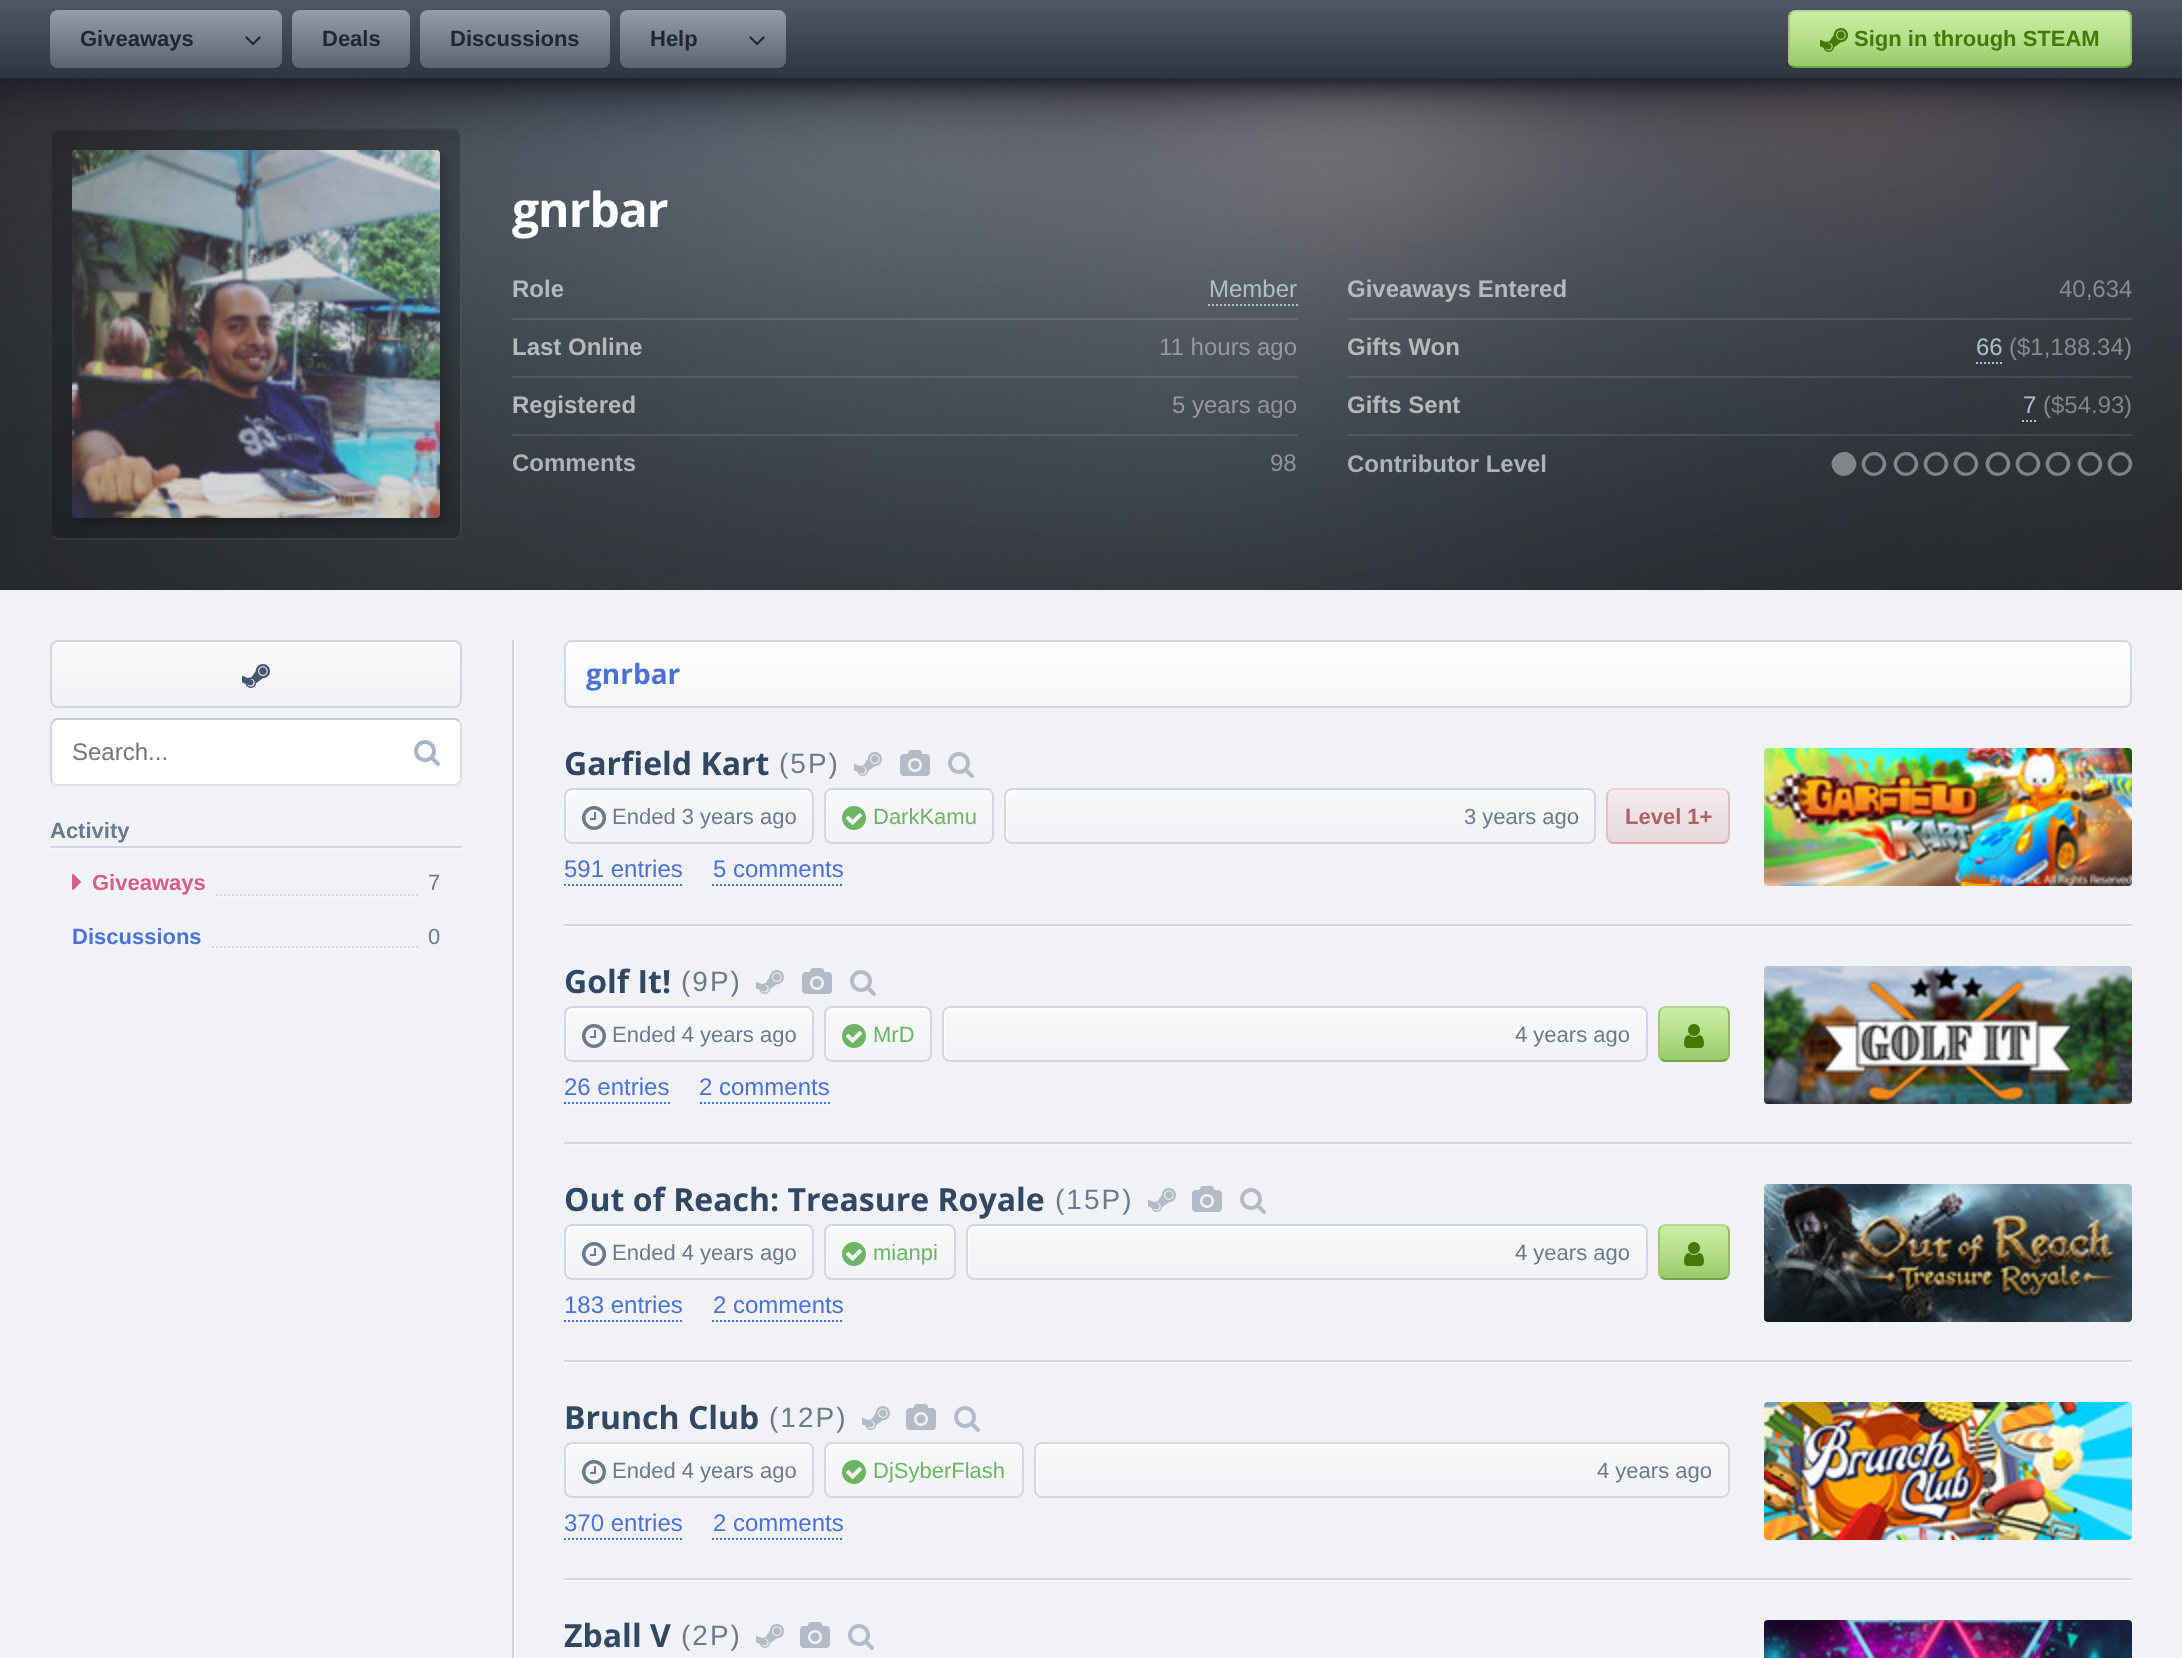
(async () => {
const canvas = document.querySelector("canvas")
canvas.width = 2182
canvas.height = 1658
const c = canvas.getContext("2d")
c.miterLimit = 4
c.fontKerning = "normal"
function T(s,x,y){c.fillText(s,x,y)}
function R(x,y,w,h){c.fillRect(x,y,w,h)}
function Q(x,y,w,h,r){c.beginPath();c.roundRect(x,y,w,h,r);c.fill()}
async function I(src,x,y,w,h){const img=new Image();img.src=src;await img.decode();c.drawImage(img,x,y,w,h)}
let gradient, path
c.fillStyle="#fff"
R(0,0,2182,1658)
gradient = c.createLinearGradient(1091,0,1091,78)
gradient.addColorStop(0,"#515763")
gradient.addColorStop(1,"#2f3540")
c.fillStyle = gradient
R(0,0,2182,78)
gradient = c.createLinearGradient(166,10,166,68)
gradient.addColorStop(0,"#959caa")
gradient.addColorStop(1,"#5d6373")
c.fillStyle = gradient
Q(50,10,232,58,8)
c.font="bold 22px Liberation Sans"
c.fillStyle="#21262f"
T("Giveaways",80,46)
await I("1.png",245,36,16,10)
gradient = c.createLinearGradient(351,10,351,68)
gradient.addColorStop(0,"#959caa")
gradient.addColorStop(1,"#5d6373")
c.fillStyle = gradient
Q(292,10,118,58,8)
c.fillStyle="#21262f"
T("Deals",322,46)
gradient = c.createLinearGradient(515,10,515,68)
gradient.addColorStop(0,"#959caa")
gradient.addColorStop(1,"#5d6373")
c.fillStyle = gradient
Q(420,10,190,58,8)
c.fillStyle="#21262f"
T("Discussions",450,46)
gradient = c.createLinearGradient(703,10,703,68)
gradient.addColorStop(0,"#959caa")
gradient.addColorStop(1,"#5d6373")
c.fillStyle = gradient
Q(620,10,166,58,8)
c.fillStyle="#21262f"
T("Help",650,46)
await I("1.png",749,36,16,10)
c.save()
c.beginPath()
c.roundRect(1788,10,344,58,8)
c.clip()
gradient = c.createLinearGradient(1960,12,1960,66)
gradient.addColorStop(0,"#caeea7")
gradient.addColorStop(.5,"#b4df8a")
gradient.addColorStop(1,"#9ac96a")
c.fillStyle = gradient
R(1788,12,344,54)
c.restore()
path = new Path2D("M1791 13c1.5-1.5 3-2 5-2h328c2 0 3.5 .5 5 2")
c.strokeStyle="#b9d393"
c.lineWidth=2
c.stroke(path)
path = new Path2D("M2129 13c1.5 1.5 2 3 2 5v42c0 2-.5 3.5-2 5")
c.strokeStyle="#96bc69"
c.stroke(path)
path = new Path2D("M2129 65c-1.5 1.5-3 2-5 2h-328c-2 0-3.5-.5-5-2")
c.strokeStyle="#73a442"
c.stroke(path)
path = new Path2D("M1791 65c-1.5-1.5-2-3-2-5v-42c0-2 .5-3.5 2-5")
c.strokeStyle="#a0c870"
c.stroke(path)
await I("2.png",1820,28,28,24)
c.fillStyle="#457807"
T("Sign in through STEAM",1854,46)
c.fillStyle="#4a5459"
R(0,87,2182,503)
await I("3.png",0,78,2182,512)
c.fillStyle="#00000033"
Q(50,128,412,412,8)
path = new Path2D("M459 131c1.5 1.5 2 3 2 5v396c0 2-.5 3.5-2 5c-1.5 1.5-3 2-5 2h-396c-2 0-3.5-.5-5-2")
c.strokeStyle="#ffffff1a"
c.stroke(path)
path = new Path2D("M53 537c-1.5-1.5-2-3-2-5v-396c0-2 .5-3.5 2-5c1.5-1.5 3-2 5-2h396c2 0 3.5 .5 5 2")
c.strokeStyle="#ffffff0d"
c.stroke(path)
c.filter="blur(4px)"
c.beginPath()
c.roundRect(78,156,368,368,4)
c.fill()
c.filter="none"
await I("4.png",72,150,368,368)
c.letterSpacing="-1px"
c.font="bold 48px Open Sans"
c.fillStyle="#fff"
T("gnrbar",512,227)
c.letterSpacing="0px"
c.font="bold 24px Liberation Sans"
c.fillStyle="#b5b9bc"
T("Role",512,297)
c.font="24px Liberation Sans"
c.fillStyle="#aac1cc"
T("Member",1209,297)
path = new Path2D("M1208 305h90")
c.strokeStyle="#aac1cc"
c.setLineDash([2,2])
c.stroke(path)
c.fillStyle="#ffffff1a"
R(512,318,786,2)
c.font="bold 24px Liberation Sans"
c.fillStyle="#b5b9bc"
T("Last Online",512,355)
c.font="24px Liberation Sans"
c.fillStyle="#96999d"
T("11 hours",1159,355)
T("ago",1257,355)
c.fillStyle="#ffffff1a"
R(512,376,786,2)
c.font="bold 24px Liberation Sans"
c.fillStyle="#b5b9bc"
T("Registered",512,413)
c.font="24px Liberation Sans"
c.fillStyle="#96999d"
T("5 years",1172,413)
c.fillStyle="#909498"
T("ago",1257,413)
c.fillStyle="#ffffff1a"
R(512,434,786,2)
c.font="bold 24px Liberation Sans"
c.fillStyle="#b0b2b4"
T("Comments",512,471)
c.font="24px Liberation Sans"
c.fillStyle="#909498"
T("98",1270,471)
c.font="bold 24px Liberation Sans"
c.fillStyle="#b5b9bc"
T("Giveaways Entered",1347,297)
c.font="24px Liberation Sans"
c.fillStyle="#888b8f"
T("40,634",2059,297)
c.fillStyle="#ffffff1a"
R(1348,318,784,2)
c.font="bold 24px Liberation Sans"
c.fillStyle="#b5b9bc"
T("Gifts Won",1347,355)
c.font="24px Liberation Sans"
c.fillStyle="#aac1cc"
T("66",1976,355)
path = new Path2D("M1976 363h26")
c.stroke(path)
c.fillStyle="#888b8f"
T("(",2009,355)
T("$1,188.34",2017,355)
T(")",2124,355)
c.fillStyle="#ffffff1a"
R(1348,376,784,2)
c.font="bold 24px Liberation Sans"
c.fillStyle="#b5b9bc"
T("Gifts Sent",1347,413)
c.font="24px Liberation Sans"
c.fillStyle="#aac1cc"
T("7",2023,413)
path = new Path2D("M2022 421h2m2 0h2m2 0h2m2 0h2")
c.setLineDash([])
c.stroke(path)
c.fillStyle="#888b8f"
T("(",2043,413)
c.fillStyle="#838689"
T("$54.93",2051,413)
T(")",2124,413)
c.fillStyle="#ffffff1a"
R(1348,434,784,2)
c.font="bold 24px Liberation Sans"
c.fillStyle="#b0b2b4"
T("Contributor Level",1347,472)
c.fillStyle="#ffffff66"
path = new Path2D("M1854.5 458c8 13.5-13 25.5-21 12c-8-13.5 13-25.5 21-12zm24-1.5c-10-5.5-18.5 9-9 15c10 5.5 18.5-9 9-15zm6 1.5c8 13.5-13 25.5-21 12c-8-13.5 13-25.5 21-12z")
c.fill(path)
path = new Path2D("M1910.5 456.5c-10-5.5-18.5 9-9 15c10 5.5 18.5-9 9-15zm6 1.5c8 13.5-13 25.5-21 12c-8-13.5 13-25.5 21-12zm24-1.5c-10-5.5-18.5 9-9 15c10 5.5 18.5-9 9-15zm6 1.5c8 13.5-13 25.5-21 12c-8-13.5 13-25.5 21-12z")
c.fill(path)
path = new Path2D("M1970.5 456.5c-10-5.5-18.5 9-9 15c10 5.5 18.5-9 9-15zm6 1.5c8 13.5-13 25.5-21 12c-8-13.5 13-25.5 21-12z")
c.fill(path)
c.fillStyle="#828487"
path = new Path2D("M2002.5 456.5c-10-5.5-18.5 9-9 15c10 5.5 18.5-9 9-15zm6 1.5c8 13.5-13 25.5-21 12c-8-13.5 13-25.5 21-12z")
c.fill(path)
c.fillStyle="#ffffff66"
path = new Path2D("M2032.5 456.5c-10-5.5-18.5 9-9 15c10 5.5 18.5-9 9-15zm6 1.5c8 13.5-13 25.5-21 12c-8-13.5 13-25.5 21-12zm24-1.5c-10-5.5-18.5 9-9 15c10 5.5 18.5-9 9-15zm6 1.5c8 13.5-13 25.5-21 12c-8-13.5 13-25.5 21-12z")
c.fill(path)
path = new Path2D("M2094.5 456.5c-10-5.5-18.5 9-9 15c10 5.5 18.5-9 9-15zm6 1.5c8 13.5-13 25.5-21 12c-8-13.5 13-25.5 21-12zm24-1.5c-10-5.5-18.5 9-9 15c10 5.5 18.5-9 9-15zm6 1.5c8 13.5-13 25.5-21 12c-8-13.5 13-25.5 21-12z")
c.fill(path)
c.fillStyle="#f0f2f5"
R(0,590,2182,1068)
c.save()
c.beginPath()
c.roundRect(50,640,412,68,8)
c.clip()
gradient = c.createLinearGradient(256,642,256,706)
gradient.addColorStop(0,"#f8f9fa")
gradient.addColorStop(1,"#f1f3f6")
c.fillStyle = gradient
R(50,642,412,64)
c.restore()
c.beginPath()
c.roundRect(51,641,410,66,7)
c.strokeStyle="#d2d6e0"
c.stroke()
await I("5.png",242,664,28,24)
c.fillStyle="#fff"
Q(50,718,412,68,8)
path = new Path2D("M53 721c1.5-1.5 3-2 5-2h396c2 0 3.5 .5 5 2")
c.strokeStyle="#c5cad7"
c.stroke(path)
path = new Path2D("M459 721c1.5 1.5 2 3 2 5v52c0 2-.5 3.5-2 5c-1.5 1.5-3 2-5 2h-396c-2 0-3.5-.5-5-2")
c.strokeStyle="#dee0e8"
c.stroke(path)
path = new Path2D("M53 783c-1.5-1.5-2-3-2-5v-52c0-2 .5-3.5 2-5")
c.strokeStyle="#d2d4e0"
c.stroke(path)
c.font="24px Liberation Sans"
c.fillStyle="#757575"
T("Search...",72,760)
await I("6.png",414,740,26,26)
c.fillStyle="#f5f6f8"
R(50,848,412,2)
c.fillStyle="#d2d6e0"
R(50,846,412,2)
c.font="bold 22px Liberation Sans"
c.fillStyle="#6b7a8c"
T("Activity",50,838)
await I("7.png",72,874,9,16)
c.fillStyle="#da5d88"
T("Giveaways",92,890)
c.font="22px Liberation Sans"
c.fillStyle="#6b7a8c"
T("7",428,890)
c.fillStyle="#f5f6f8"
R(216,896,202,2)
path = new Path2D("M216 895h202")
c.strokeStyle="#d2d6e0"
c.setLineDash([2,2])
c.stroke(path)
c.font="bold 22px Liberation Sans"
c.fillStyle="#4b72d4"
T("Discussions",72,944)
c.font="22px Liberation Sans"
c.fillStyle="#6b7a8c"
T("0",428,944)
c.fillStyle="#f5f6f8"
R(212,948,206,2)
path = new Path2D("M212 947h206")
c.stroke(path)
R(514,640,2,1018)
c.fillStyle="#d2d6e0"
R(512,640,2,1018)
c.save()
c.beginPath()
c.roundRect(564,640,1568,68,8)
c.clip()
gradient = c.createLinearGradient(1348,642,1348,706)
gradient.addColorStop(0,"#fff")
gradient.addColorStop(1,"#f6f7f9")
c.fillStyle = gradient
R(564,642,1568,64)
c.restore()
c.beginPath()
c.roundRect(565,641,1566,66,7)
c.setLineDash([])
c.stroke()
c.font="bold 28px Open Sans"
c.fillStyle="#4b72d4"
T("gnrbar",586,684)
c.fillStyle="#f5f6f8"
R(564,926,1568,2)
c.fillStyle="#d2d6e0"
R(564,924,1568,2)
c.font="bold 32px Open Sans"
c.fillStyle="#324862"
T("Garfield Kart",564,775)
c.letterSpacing="2px"
c.font="28px Liberation Sans"
c.fillStyle="#6b7a8c"
T("(5P)",779,773)
await I("8.png",854,752,28,24)
await I("9.png",900,750,30,26)
await I("10.png",948,752,26,26)
c.save()
c.beginPath()
c.roundRect(564,788,250,56,8)
c.clip()
gradient = c.createLinearGradient(689,790,689,842)
gradient.addColorStop(0,"#f9fafb")
gradient.addColorStop(.23,"#f5f7f9")
gradient.addColorStop(1,"#f2f3f6")
c.fillStyle = gradient
R(564,790,250,52)
c.restore()
c.fillStyle="#ffffff99"
path = new Path2D("M574 792h234c1 0 2 0 3 1c-1-2-3-3-5-3h-234c-3 0-6 3-6 6v40c0 2 1 4 3 5c-1-1-1-2-1-3v-40c0-3 3-6 6-6z")
c.fill(path)
c.beginPath()
c.roundRect(565,789,248,54,7)
c.stroke()
await I("11.png",582,806,24,24)
c.letterSpacing="0px"
c.font="22px Liberation Sans"
c.fillStyle="#6b7a8c"
T("Ended 3 years ago",612,824)
c.save()
c.beginPath()
c.roundRect(824,788,170,56,8)
c.clip()
gradient = c.createLinearGradient(909,790,909,842)
gradient.addColorStop(0,"#f9fafb")
gradient.addColorStop(.23,"#f5f7f9")
gradient.addColorStop(1,"#f2f3f6")
c.fillStyle = gradient
R(824,790,170,52)
c.restore()
c.fillStyle="#ffffff99"
path = new Path2D("M834 792h154c1 0 2 0 3 1c-1-2-3-3-5-3h-154c-3 0-6 3-6 6v40c0 2 1 4 3 5c-1-1-1-2-1-3v-40c0-3 3-6 6-6z")
c.fill(path)
c.beginPath()
c.roundRect(825,789,168,54,7)
c.stroke()
await I("12.png",842,806,24,24)
c.fillStyle="#6db563"
T("DarkKamu",873,824)
c.save()
c.beginPath()
c.roundRect(1004,788,592,56,8)
c.clip()
gradient = c.createLinearGradient(1300,790,1300,842)
gradient.addColorStop(0,"#f9fafb")
gradient.addColorStop(.23,"#f5f7f9")
gradient.addColorStop(1,"#f2f3f6")
c.fillStyle = gradient
R(1004,790,592,52)
c.restore()
c.fillStyle="#ffffff99"
path = new Path2D("M1014 792h576l3 1c-1-2-3-3-5-3h-576c-3 0-6 3-6 6v40c0 2 1 4 3 5c-1-1-1-2-1-3v-40c0-3 3-6 6-6z")
c.fill(path)
c.beginPath()
c.roundRect(1005,789,590,54,7)
c.stroke()
c.fillStyle="#6b7a8c"
T("3 years ago",1464,824)
c.save()
c.beginPath()
c.roundRect(1606,788,124,56,8)
c.clip()
gradient = c.createLinearGradient(1668,790,1668,842)
gradient.addColorStop(0,"#f5eaec")
gradient.addColorStop(1,"#e6d9de")
c.fillStyle = gradient
R(1606,790,124,52)
c.restore()
path = new Path2D("M1609 791c1.5-1.5 3-2 5-2h108c2 0 3.5 .5 5 2")
c.strokeStyle="#f0d0d3"
c.stroke(path)
path = new Path2D("M1727 791c1.5 1.5 2 3 2 5v40c0 2-.5 3.5-2 5")
c.strokeStyle="#e5bbbc"
c.stroke(path)
path = new Path2D("M1727 841c-1.5 1.5-3 2-5 2h-108c-2 0-3.5-.5-5-2")
c.strokeStyle="#daa9a8"
c.stroke(path)
path = new Path2D("M1609 841c-1.5-1.5-2-3-2-5v-40c0-2 .5-3.5 2-5")
c.strokeStyle="#ebbfc0"
c.stroke(path)
c.font="bold 22px Liberation Sans"
c.fillStyle="#aa6463"
T("Level 1+",1625,824)
c.font="24px Liberation Sans"
c.fillStyle="#4b72d4"
T("591 entries",564,877)
c.fillStyle="#f5f6f8"
R(564,886,118,2)
path = new Path2D("M564 885h118")
c.strokeStyle="#4b72d4"
c.setLineDash([2,2])
c.stroke(path)
c.fillStyle="#4b72d4"
T("5 comments",713,877)
c.fillStyle="#f5f6f8"
R(712,886,132,2)
path = new Path2D("M712 885h132")
c.stroke(path)
await I("13.png",1764,748,368,138)
R(564,1144,1568,2)
c.fillStyle="#d2d6e0"
R(564,1142,1568,2)
c.font="bold 32px Open Sans"
c.fillStyle="#324862"
T("Golf It!",564,993)
c.letterSpacing="2px"
c.font="28px Liberation Sans"
c.fillStyle="#6b7a8c"
T("(9P)",681,991)
await I("8.png",756,970,28,24)
await I("9.png",802,968,30,26)
await I("10.png",850,970,26,26)
c.save()
c.beginPath()
c.roundRect(564,1006,250,56,8)
c.clip()
gradient = c.createLinearGradient(689,1008,689,1060)
gradient.addColorStop(0,"#f9fafb")
gradient.addColorStop(.23,"#f5f7f9")
gradient.addColorStop(1,"#f2f3f6")
c.fillStyle = gradient
R(564,1008,250,52)
c.restore()
c.fillStyle="#ffffff99"
path = new Path2D("M574 1010h234c1 0 2 0 3 1c-1-2-3-3-5-3h-234c-3 0-6 3-6 6v40c0 2 1 4 3 5c-1-1-1-2-1-3v-40c0-3 3-6 6-6z")
c.fill(path)
c.beginPath()
c.roundRect(565,1007,248,54,7)
c.strokeStyle="#d2d6e0"
c.setLineDash([])
c.stroke()
await I("11.png",582,1024,24,24)
c.letterSpacing="0px"
c.font="22px Liberation Sans"
c.fillStyle="#6b7a8c"
T("Ended 4 years ago",612,1042)
c.save()
c.beginPath()
c.roundRect(824,1006,108,56,8)
c.clip()
gradient = c.createLinearGradient(878,1008,878,1060)
gradient.addColorStop(0,"#f9fafb")
gradient.addColorStop(.23,"#f5f7f9")
gradient.addColorStop(1,"#f2f3f6")
c.fillStyle = gradient
R(824,1008,108,52)
c.restore()
c.fillStyle="#ffffff99"
path = new Path2D("M834 1010h92c1 0 2 0 3 1c-1-2-3-3-5-3h-92c-3 0-6 3-6 6v40c0 2 1 4 3 5c-1-1-1-2-1-3v-40c0-3 3-6 6-6z")
c.fill(path)
c.beginPath()
c.roundRect(825,1007,106,54,7)
c.stroke()
await I("12.png",842,1024,24,24)
c.fillStyle="#6db563"
T("MrD",873,1042)
c.save()
c.beginPath()
c.roundRect(942,1006,706,56,8)
c.clip()
gradient = c.createLinearGradient(1295,1008,1295,1060)
gradient.addColorStop(0,"#f9fafb")
gradient.addColorStop(.23,"#f5f7f9")
gradient.addColorStop(1,"#f2f3f6")
c.fillStyle = gradient
R(942,1008,706,52)
c.restore()
c.fillStyle="#ffffff99"
path = new Path2D("M952 1010h690l3 1c-1-2-3-3-5-3h-690c-3 0-6 3-6 6v40c0 2 1 4 3 5c-1-1-1-2-1-3v-40c0-3 3-6 6-6z")
c.fill(path)
c.beginPath()
c.roundRect(943,1007,704,54,7)
c.stroke()
c.fillStyle="#6b7a8c"
T("4 years ago",1515,1042)
c.save()
c.beginPath()
c.roundRect(1658,1006,72,56,8)
c.clip()
gradient = c.createLinearGradient(1694,1008,1694,1060)
gradient.addColorStop(0,"#caeea7")
gradient.addColorStop(.5,"#b4df8a")
gradient.addColorStop(1,"#9ac96a")
c.fillStyle = gradient
R(1658,1008,72,52)
c.restore()
path = new Path2D("M1661 1009c1.5-1.5 3-2 5-2h56c2 0 3.5 .5 5 2")
c.strokeStyle="#b9d393"
c.stroke(path)
path = new Path2D("M1727 1009c1.5 1.5 2 3 2 5v40c0 2-.5 3.5-2 5")
c.strokeStyle="#96bc69"
c.stroke(path)
path = new Path2D("M1727 1059c-1.5 1.5-3 2-5 2h-56c-2 0-3.5-.5-5-2")
c.strokeStyle="#73a442"
c.stroke(path)
path = new Path2D("M1661 1059c-1.5-1.5-2-3-2-5v-40c0-2 .5-3.5 2-5")
c.strokeStyle="#a0c870"
c.stroke(path)
await I("14.png",1684,1024,20,24)
c.font="24px Liberation Sans"
c.fillStyle="#4b72d4"
T("26 entries",564,1095)
c.fillStyle="#f5f6f8"
R(564,1104,106,2)
path = new Path2D("M564 1103h106")
c.strokeStyle="#4b72d4"
c.setLineDash([2,2])
c.stroke(path)
c.fillStyle="#4b72d4"
T("2 comments",699,1095)
c.fillStyle="#f5f6f8"
R(700,1104,130,2)
path = new Path2D("M700 1103h130")
c.stroke(path)
await I("15.png",1764,966,368,138)
R(564,1362,1568,2)
c.fillStyle="#d2d6e0"
R(564,1360,1568,2)
c.font="bold 32px Open Sans"
c.fillStyle="#324862"
T("Out of Reach: Treasure Royale",564,1211)
c.letterSpacing="2px"
c.font="28px Liberation Sans"
c.fillStyle="#6b7a8c"
T("(15P)",1055,1209)
await I("8.png",1148,1188,28,24)
await I("9.png",1192,1186,30,26)
await I("10.png",1240,1188,26,26)
c.save()
c.beginPath()
c.roundRect(564,1224,250,56,8)
c.clip()
gradient = c.createLinearGradient(689,1226,689,1278)
gradient.addColorStop(0,"#f9fafb")
gradient.addColorStop(.23,"#f5f7f9")
gradient.addColorStop(1,"#f2f3f6")
c.fillStyle = gradient
R(564,1226,250,52)
c.restore()
c.fillStyle="#ffffff99"
path = new Path2D("M574 1228h234c1 0 2 0 3 1c-1-2-3-3-5-3h-234c-3 0-6 3-6 6v40c0 2 1 4 3 5c-1-1-1-2-1-3v-40c0-3 3-6 6-6z")
c.fill(path)
c.beginPath()
c.roundRect(565,1225,248,54,7)
c.strokeStyle="#d2d6e0"
c.setLineDash([])
c.stroke()
await I("11.png",582,1242,24,24)
c.letterSpacing="0px"
c.font="22px Liberation Sans"
c.fillStyle="#6b7a8c"
T("Ended 4 years ago",612,1260)
c.save()
c.beginPath()
c.roundRect(824,1224,132,56,8)
c.clip()
gradient = c.createLinearGradient(890,1226,890,1278)
gradient.addColorStop(0,"#f9fafb")
gradient.addColorStop(.23,"#f5f7f9")
gradient.addColorStop(1,"#f2f3f6")
c.fillStyle = gradient
R(824,1226,132,52)
c.restore()
c.fillStyle="#ffffff99"
path = new Path2D("M834 1228h116c1 0 2 0 3 1c-1-2-3-3-5-3h-116c-3 0-6 3-6 6v40c0 2 1 4 3 5c-1-1-1-2-1-3v-40c0-3 3-6 6-6z")
c.fill(path)
c.beginPath()
c.roundRect(825,1225,130,54,7)
c.stroke()
await I("12.png",842,1242,24,24)
c.fillStyle="#6db563"
T("mianpi",873,1260)
c.save()
c.beginPath()
c.roundRect(966,1224,682,56,8)
c.clip()
gradient = c.createLinearGradient(1307,1226,1307,1278)
gradient.addColorStop(0,"#f9fafb")
gradient.addColorStop(.23,"#f5f7f9")
gradient.addColorStop(1,"#f2f3f6")
c.fillStyle = gradient
R(966,1226,682,52)
c.restore()
c.fillStyle="#ffffff99"
path = new Path2D("M976 1228h666l3 1c-1-2-3-3-5-3h-666c-3 0-6 3-6 6v40c0 2 1 4 3 5c-1-1-1-2-1-3v-40c0-3 3-6 6-6z")
c.fill(path)
c.beginPath()
c.roundRect(967,1225,680,54,7)
c.stroke()
c.fillStyle="#6b7a8c"
T("4 years ago",1515,1260)
c.save()
c.beginPath()
c.roundRect(1658,1224,72,56,8)
c.clip()
gradient = c.createLinearGradient(1694,1226,1694,1278)
gradient.addColorStop(0,"#caeea7")
gradient.addColorStop(.5,"#b4df8a")
gradient.addColorStop(1,"#9ac96a")
c.fillStyle = gradient
R(1658,1226,72,52)
c.restore()
path = new Path2D("M1661 1227c1.5-1.5 3-2 5-2h56c2 0 3.5 .5 5 2")
c.strokeStyle="#b9d393"
c.stroke(path)
path = new Path2D("M1727 1227c1.5 1.5 2 3 2 5v40c0 2-.5 3.5-2 5")
c.strokeStyle="#96bc69"
c.stroke(path)
path = new Path2D("M1727 1277c-1.5 1.5-3 2-5 2h-56c-2 0-3.5-.5-5-2")
c.strokeStyle="#73a442"
c.stroke(path)
path = new Path2D("M1661 1277c-1.5-1.5-2-3-2-5v-40c0-2 .5-3.5 2-5")
c.strokeStyle="#a0c870"
c.stroke(path)
await I("14.png",1684,1242,20,24)
c.font="24px Liberation Sans"
c.fillStyle="#4b72d4"
T("183 entries",564,1313)
c.fillStyle="#f5f6f8"
R(564,1322,118,2)
path = new Path2D("M564 1321h118")
c.strokeStyle="#4b72d4"
c.setLineDash([2,2])
c.stroke(path)
c.fillStyle="#4b72d4"
T("2 comments",713,1313)
c.fillStyle="#f5f6f8"
R(712,1322,132,2)
path = new Path2D("M712 1321h132")
c.stroke(path)
await I("16.png",1764,1184,368,138)
R(564,1580,1568,2)
c.fillStyle="#d2d6e0"
R(564,1578,1568,2)
c.font="bold 32px Open Sans"
c.fillStyle="#324862"
T("Brunch Club",564,1429)
c.letterSpacing="2px"
c.font="28px Liberation Sans"
c.fillStyle="#6b7a8c"
T("(12P)",769,1427)
await I("8.png",862,1406,28,24)
await I("9.png",906,1404,30,26)
await I("10.png",954,1406,26,26)
c.save()
c.beginPath()
c.roundRect(564,1442,250,56,8)
c.clip()
gradient = c.createLinearGradient(689,1444,689,1496)
gradient.addColorStop(0,"#f9fafb")
gradient.addColorStop(.23,"#f5f7f9")
gradient.addColorStop(1,"#f2f3f6")
c.fillStyle = gradient
R(564,1444,250,52)
c.restore()
c.fillStyle="#ffffff99"
path = new Path2D("M574 1446h234c1 0 2 0 3 1c-1-2-3-3-5-3h-234c-3 0-6 3-6 6v40c0 2 1 4 3 5c-1-1-1-2-1-3v-40c0-3 3-6 6-6z")
c.fill(path)
c.beginPath()
c.roundRect(565,1443,248,54,7)
c.strokeStyle="#d2d6e0"
c.setLineDash([])
c.stroke()
await I("11.png",582,1460,24,24)
c.letterSpacing="0px"
c.font="22px Liberation Sans"
c.fillStyle="#6b7a8c"
T("Ended 4 years ago",612,1478)
c.save()
c.beginPath()
c.roundRect(824,1442,200,56,8)
c.clip()
gradient = c.createLinearGradient(924,1444,924,1496)
gradient.addColorStop(0,"#f9fafb")
gradient.addColorStop(.23,"#f5f7f9")
gradient.addColorStop(1,"#f2f3f6")
c.fillStyle = gradient
R(824,1444,200,52)
c.restore()
c.fillStyle="#ffffff99"
path = new Path2D("M834 1446h184c1 0 2 0 3 1c-1-2-3-3-5-3h-184c-3 0-6 3-6 6v40c0 2 1 4 3 5c-1-1-1-2-1-3v-40c0-3 3-6 6-6z")
c.fill(path)
c.beginPath()
c.roundRect(825,1443,198,54,7)
c.stroke()
await I("12.png",842,1460,24,24)
c.fillStyle="#6db563"
T("DjSyberFlash",873,1478)
c.save()
c.beginPath()
c.roundRect(1034,1442,696,56,8)
c.clip()
gradient = c.createLinearGradient(1382,1444,1382,1496)
gradient.addColorStop(0,"#f9fafb")
gradient.addColorStop(.23,"#f5f7f9")
gradient.addColorStop(1,"#f2f3f6")
c.fillStyle = gradient
R(1034,1444,696,52)
c.restore()
c.fillStyle="#ffffff99"
path = new Path2D("M1044 1446h680l3 1c-1-2-3-3-5-3h-680c-3 0-6 3-6 6v40c0 2 1 4 3 5c-1-1-1-2-1-3v-40c0-3 3-6 6-6z")
c.fill(path)
c.beginPath()
c.roundRect(1035,1443,694,54,7)
c.stroke()
c.fillStyle="#6b7a8c"
T("4 years ago",1597,1478)
c.font="24px Liberation Sans"
c.fillStyle="#4b72d4"
T("370 entries",564,1531)
c.fillStyle="#f5f6f8"
R(564,1540,118,2)
path = new Path2D("M564 1539h118")
c.strokeStyle="#4b72d4"
c.setLineDash([2,2])
c.stroke(path)
c.fillStyle="#4b72d4"
T("2 comments",713,1531)
c.fillStyle="#f5f6f8"
R(712,1540,132,2)
path = new Path2D("M712 1539h132")
c.stroke(path)
await I("17.png",1764,1402,368,138)
c.font="bold 32px Open Sans"
c.fillStyle="#324862"
T("Zball V",564,1647)
c.letterSpacing="2px"
c.font="28px Liberation Sans"
c.fillStyle="#6b7a8c"
T("(2P)",681,1645)
await I("8.png",756,1624,28,24)
await I("9.png",800,1622,30,26)
await I("10.png",848,1624,26,26)
await I("18.png",1764,1620,368,38)
})()
